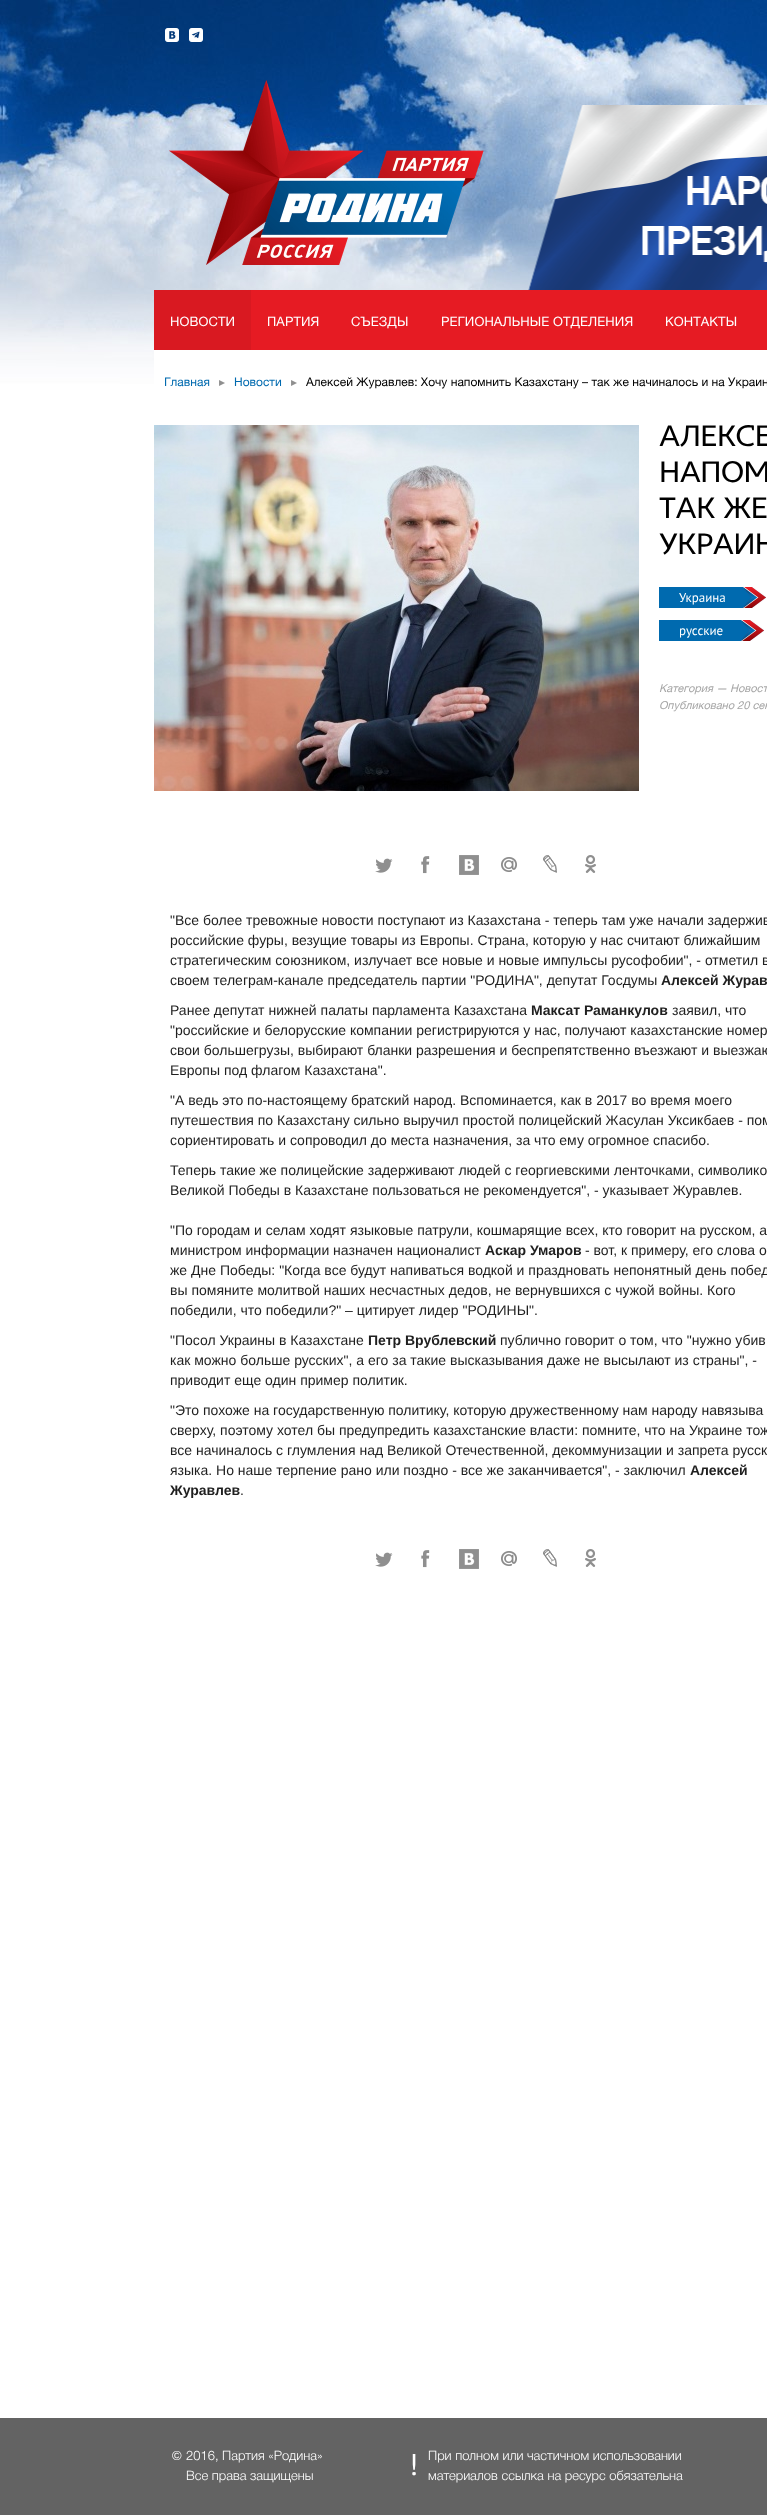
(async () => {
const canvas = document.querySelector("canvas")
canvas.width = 767
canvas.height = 2515
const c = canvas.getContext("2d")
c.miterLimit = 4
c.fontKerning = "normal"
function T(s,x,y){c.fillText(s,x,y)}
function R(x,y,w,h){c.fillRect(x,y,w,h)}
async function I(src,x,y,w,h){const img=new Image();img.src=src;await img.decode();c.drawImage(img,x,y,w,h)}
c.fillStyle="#fff"
R(0,0,767,2515)
await I("1.png",0,0,767,384)
await I("2.png",165,28,14,14)
await I("3.png",189,28,14,14)
await I("4.png",169,80,315,185)
await I("5.png",528,105,239,185)
c.fillStyle="#e61b23"
R(251,290,516,60)
c.fillStyle="#d91921"
R(154,290,97,60)
c.letterSpacing="0.1px"
c.font="13px Helvetica Neue"
c.fillStyle="#fff"
T("НОВОСТИ",170,326)
T("ПАРТИЯ",267,326)
T("СЪЕЗДЫ",351,326)
T("РЕГИОНАЛЬНЫЕ ОТДЕЛЕНИЯ",441,326)
T("КОНТАКТЫ",665,326)
R(154,350,613,34)
c.letterSpacing="0px"
c.font="12px Helvetica Neue"
c.fillStyle="#006aaf"
T("Главная",164,386)
c.font="12px DejaVu Sans"
c.fillStyle="#8f8f8f"
T("▸",219,386)
c.font="12px Helvetica Neue"
c.fillStyle="#006aaf"
T("Новости",234,386)
c.font="12px DejaVu Sans"
c.fillStyle="#8f8f8f"
T("▸",291,386)
c.font="12px Helvetica Neue"
c.fillStyle="#000"
T("Алексей Журавлев: Хочу напомнить Казахстану – так же начиналось и на Украин",306,386)
await I("6.png",154,425,485,366)
c.letterSpacing="-0.5px"
c.font="30px 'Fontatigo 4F'"
T("АЛЕКСЕ",659,446)
T("НАПОМ",659,482)
T("ТАК ЖЕ",659,518)
T("УКРАИН",659,554)
c.fillStyle="#006aaf"
R(659,587,93,21)
c.letterSpacing="0px"
c.font="13px PT Sans"
c.fillStyle="#fff"
T("Украина",679,602)
await I("7.png",743,587,23,21)
c.fillStyle="#006aaf"
R(659,620,91,21)
c.fillStyle="#fff"
T("русские",679,635)
await I("7.png",741,620,23,21)
c.font="italic 11px Helvetica Neue"
c.fillStyle="#a6a6a6"
T("Категория — Новост",659,692)
T("Опубликовано 20 сен",659,709)
await I("8.png",375,858,18,15)
await I("9.png",421,856,9,18)
await I("10.png",459,855,20,20)
await I("11.png",501,857,16,15)
await I("12.png",543,855,14,18)
await I("13.png",585,855,11,18)
c.font="14px Liberation Sans"
c.fillStyle="#1f1f1f"
T("\"Все более тревожные новости поступают из Казахстана - теперь там уже начали задержив",170,925)
T("российские фуры, везущие товары из Европы. Страна, которую у нас считают ближайшим",170,945)
T("стратегическим союзником, излучает все новые и новые импульсы русофобии\", - отметил в",170,965)
T("своем телеграм-канале председатель партии \"РОДИНА\", депутат Госдумы",170,985)
c.font="bold 14px Liberation Sans"
T("Алексей Журав",661,985)
c.font="14px Liberation Sans"
T("Ранее депутат нижней палаты парламента Казахстана",170,1015)
c.font="bold 14px Liberation Sans"
T("Максат Раманкулов",531,1015)
c.font="14px Liberation Sans"
T("заявил, что",672,1015)
T("\"российские и белорусские компании регистрируются у нас, получают казахстанские номер",170,1035)
T("свои большегрузы, выбирают бланки разрешения и беспрепятственно въезжают и выезжаю",170,1055)
T("Европы под флагом Казахстана\".",170,1075)
T("\"А ведь это по-настоящему братский народ. Вспоминается, как в 2017 во время моего",170,1105)
T("путешествия по Казахстану сильно выручил простой полицейский Жасулан Уксикбаев - пом",170,1125)
T("сориентировать и сопроводил до места назначения, за что ему огромное спасибо.",170,1145)
T("Теперь такие же полицейские задерживают людей с георгиевскими ленточками, символико",170,1175)
T("Великой Победы в Казахстане пользоваться не рекомендуется\", - указывает Журавлев.",170,1195)
T("\"По городам и селам ходят языковые патрули, кошмарящие всех, кто говорит на русском, а",170,1235)
T("министром информации назначен националист",170,1255)
c.font="bold 14px Liberation Sans"
T("Аскар Умаров",485,1255)
c.font="14px Liberation Sans"
T("- вот, к примеру, его слова о",585,1255)
T("же Дне Победы: \"Когда все будут напиваться водкой и праздновать непонятный день побед",170,1275)
T("вы помяните молитвой наших несчастных дедов, не вернувшихся с чужой войны. Кого",170,1295)
T("победили, что победили?\" – цитирует лидер \"РОДИНЫ\".",170,1315)
T("\"Посол Украины в Казахстане",170,1345)
c.font="bold 14px Liberation Sans"
T("Петр Врублевский",368,1345)
c.font="14px Liberation Sans"
T("публично говорит о том, что \"нужно убив",500,1345)
T("как можно больше русских\", а его за такие высказывания даже не высылают из страны\", -",170,1365)
T("приводит еще один пример политик.",170,1385)
T("\"Это похоже на государственную политику, которую дружественному нам народу навязыва",170,1415)
T("сверху, поэтому хотел бы предупредить казахстанские власти: помните, что на Украине тож",170,1435)
T("все начиналось с глумления над Великой Отечественной, декоммунизации и запрета русск",170,1455)
T("языка. Но наше терпение рано или поздно - все же заканчивается\", - заключил",170,1475)
c.font="bold 14px Liberation Sans"
T("Алексей",690,1475)
T("Журавлев",170,1495)
c.font="14px Liberation Sans"
T(".",240,1495)
await I("8.png",375,1552,18,15)
await I("9.png",421,1550,9,18)
await I("10.png",459,1549,20,20)
await I("11.png",501,1551,16,15)
await I("12.png",543,1549,14,18)
await I("13.png",585,1549,11,18)
c.fillStyle="#636363"
R(0,2418,767,97)
c.font="13px Liberation Sans"
c.fillStyle="#fff"
T("©",172,2460)
c.font="300 13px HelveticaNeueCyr"
T("2016, Партия «Родина»",186,2460)
T("Все права защищены",186,2480)
c.font="30px PT Sans"
T("!",409,2475)
c.font="300 13px HelveticaNeueCyr"
T("При полном или частичном использовании",428,2460)
T("материалов ссылка на ресурс обязательна",428,2480)
})()
